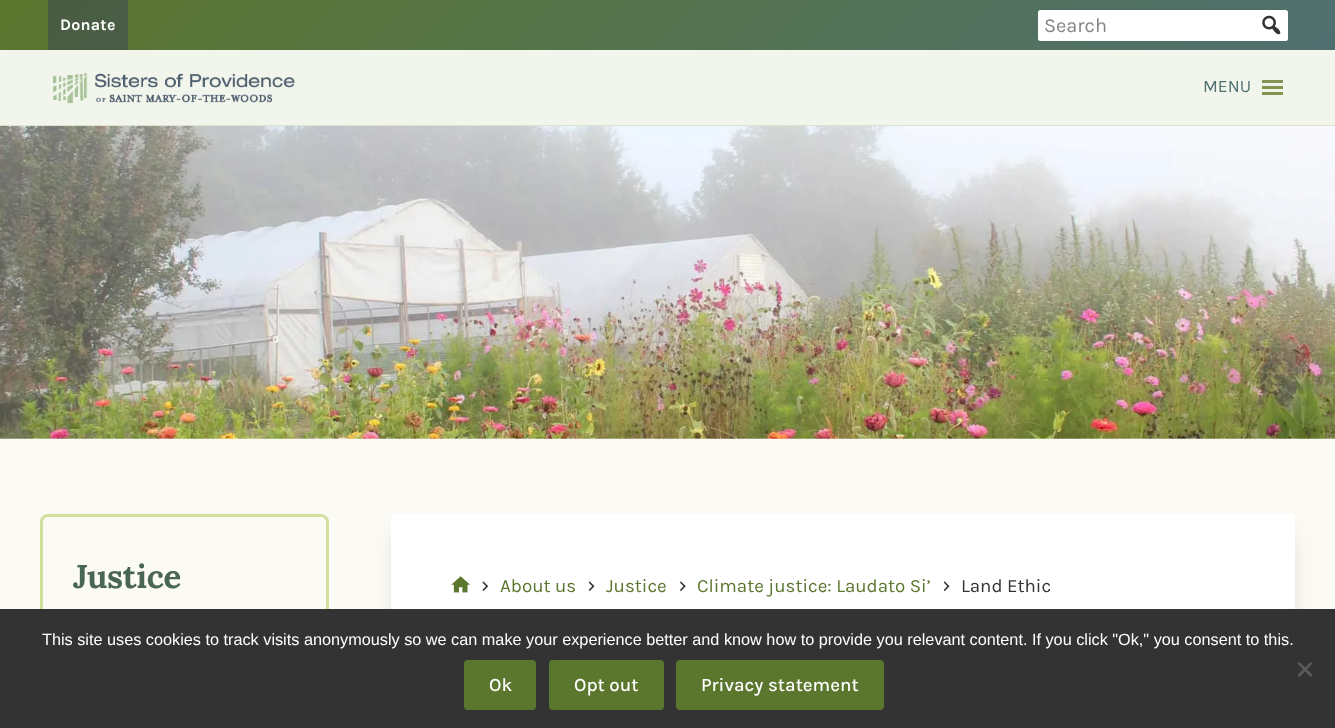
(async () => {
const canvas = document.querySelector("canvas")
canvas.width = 1335
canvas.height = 728
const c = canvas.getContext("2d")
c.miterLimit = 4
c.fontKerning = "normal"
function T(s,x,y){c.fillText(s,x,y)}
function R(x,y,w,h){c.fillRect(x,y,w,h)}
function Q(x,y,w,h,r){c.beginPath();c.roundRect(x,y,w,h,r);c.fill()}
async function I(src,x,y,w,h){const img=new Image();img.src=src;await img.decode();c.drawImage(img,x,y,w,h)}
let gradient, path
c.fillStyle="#fbfaf5"
R(0,0,1335,728)
gradient = c.createLinearGradient(321,-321,1014,371)
gradient.addColorStop(0,"#5b762d")
gradient.addColorStop(1,"#4f7070")
c.fillStyle = gradient
R(0,0,1335,50)
gradient = c.createLinearGradient(321,-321,1014,371)
gradient.addColorStop(0,"#4a5d42")
gradient.addColorStop(1,"#445a61")
c.fillStyle = gradient
R(48,0,80,50)
c.letterSpacing="0.25px"
c.font="bold 16px Karla"
c.fillStyle="#fff"
T("Donate",60,30)
Q(1038,10,250,31,2.5)
c.letterSpacing="0px"
c.font="20px Karla"
c.fillStyle="#858585"
T("Search",1044,32)
await I("1.png",1262,15,19,20)
c.fillStyle="#f2f5ec"
R(0,50,1335,75)
c.fillStyle="#dbe3cb"
R(0,125,1335,1)
await I("2.png",53,72,242,32)
c.font="17.5px Karla"
c.fillStyle="#4f7070"
T("MENU",1203,92)
await I("3.png",1262,80,21,15)
await I("4.png",0,126,1335,313)
c.beginPath()
c.roundRect(41.5,515.5,286,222,6.5)
c.strokeStyle="#d2e09d"
c.lineWidth=3
c.stroke()
c.letterSpacing="-0.25px"
c.font="bold 33px Lora"
c.fillStyle="#486652"
T("Justice",73,588)
c.fillStyle="#33333342"
c.filter="blur(11px)"
c.beginPath()
c.rect(399,536,889,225)
c.fill()
c.filter="none"
c.fillStyle="#fff"
Q(391,514,904,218,4)
await I("5.png",451,576,19,17)
await I("6.png",482,581,7,10)
c.letterSpacing="0px"
c.font="18.75px Karla"
c.fillStyle="#5b762d"
T("About us",500,592)
await I("7.png",588,581,7,10)
T("Justice",606,592)
await I("8.png",680,581,6,10)
T("Climate justice: Laudato Si’",697,592)
await I("7.png",943,581,7,10)
c.fillStyle="#333"
T("Land Ethic",961,592)
R(0,609,1335,119)
c.font="16.25px Liberation Sans"
c.fillStyle="#fff"
T("This site uses cookies to track visits anonymously so we can make your experience better and know how to provide you relevant content. If you click \"Ok,\" you consent to this.",42,645)
c.fillStyle="#5a5a5a"
path = new Path2D("M1310.5 662l2 1.5l-13 13.5l-2-2z")
c.fill(path)
path = new Path2D("M1297.5 663.5l2-1.5l13 13l-2 2z")
c.fill(path)
c.fillStyle="#5b762d"
Q(464,660,72,50,4)
c.font="500 18.75px Karla"
c.fillStyle="#fff"
T("Ok",489,691)
c.fillStyle="#5b762d"
Q(549,660,115,50,4)
c.fillStyle="#fff"
T("Opt out",574,691)
c.fillStyle="#5b762d"
Q(676,660,208,50,4)
c.fillStyle="#fff"
T("Privacy statement",701,691)
})()
